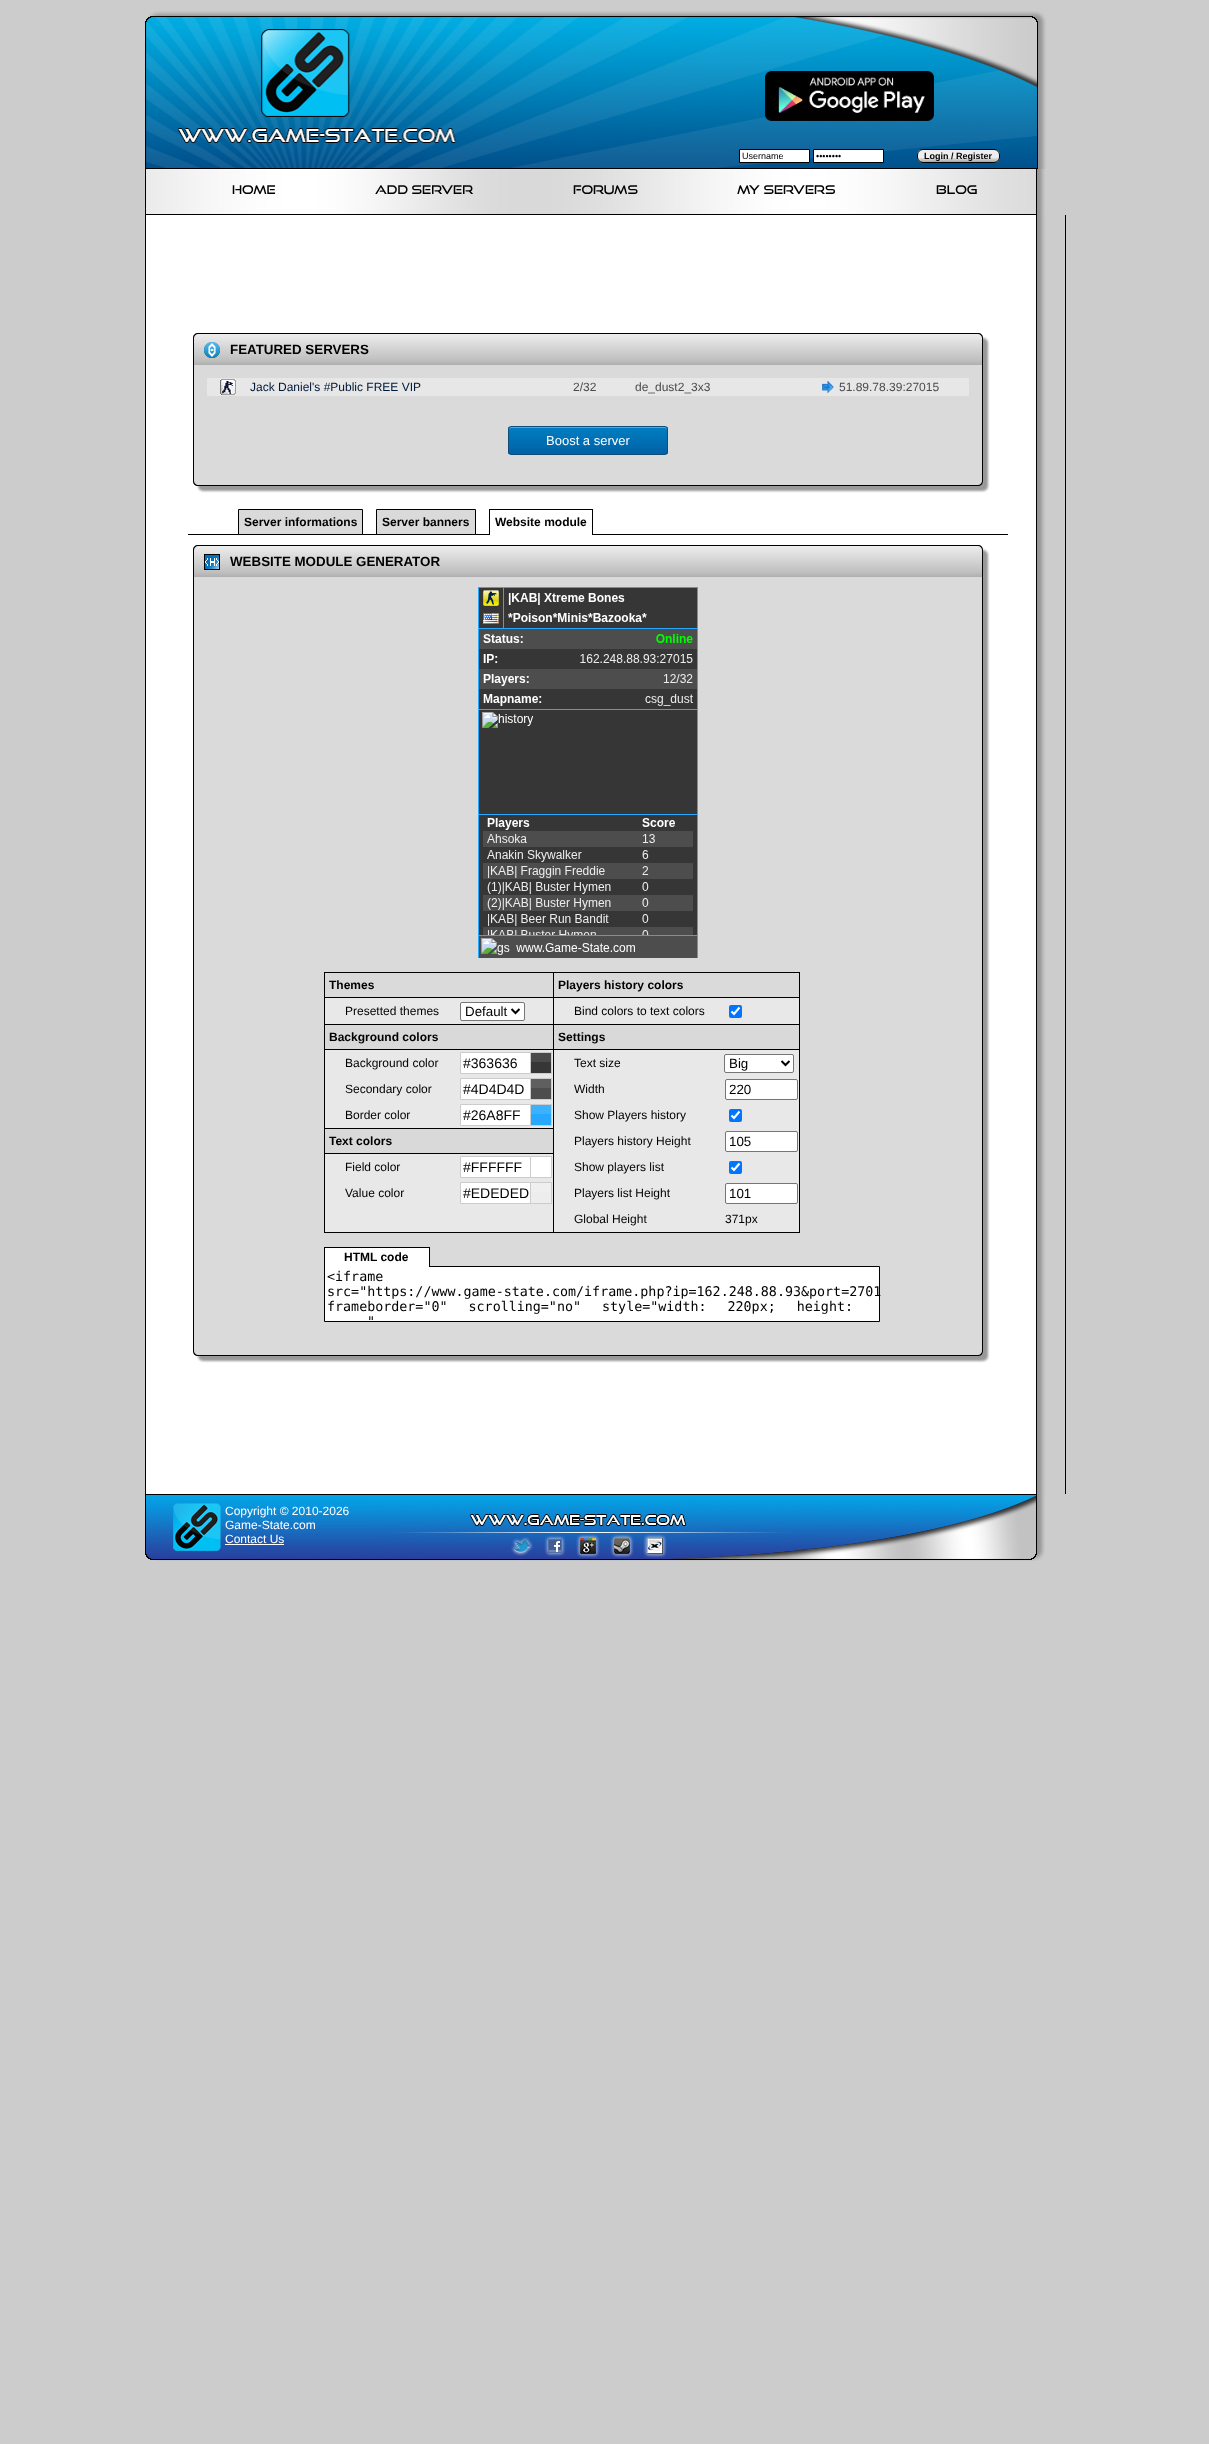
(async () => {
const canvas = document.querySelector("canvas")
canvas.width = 1209
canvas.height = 2444
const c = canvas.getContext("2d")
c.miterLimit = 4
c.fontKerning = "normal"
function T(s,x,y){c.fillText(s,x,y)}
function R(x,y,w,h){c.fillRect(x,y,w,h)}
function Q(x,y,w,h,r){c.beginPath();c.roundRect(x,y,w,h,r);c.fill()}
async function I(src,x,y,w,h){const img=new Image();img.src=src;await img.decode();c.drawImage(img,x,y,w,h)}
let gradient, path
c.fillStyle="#cdcccc"
R(0,0,1209,2444)
await I("1.png",145,11,901,158)
await I("2.png",765,71,169,50)
c.fillStyle="#fff"
c.beginPath()
c.rect(739.5,149.5,70,13)
c.fill()
c.strokeStyle="#000"
c.stroke()
c.font="9px Liberation Sans"
c.fillStyle="#000"
T("Username",742,159)
c.fillStyle="#fff"
c.beginPath()
c.rect(813.5,149.5,70,13)
c.fill()
c.stroke()
c.fillStyle="#000"
T("••••••••",816,159)
await I("3.png",917,150,83,13)
c.beginPath()
c.roundRect(917.5,149.5,82,13,5.5)
c.stroke()
c.font="bold 9px Liberation Sans"
T("Login / Register",924,159)
await I("4.png",145,169,900,46)
c.font="12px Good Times"
T("Home",232,194)
T("Add Server",375,194)
T("Forums",573,194)
T("My servers",737,194)
T("Blog",936,194)
await I("5.png",145,215,921,1279)
c.fillStyle="#999"
c.filter="blur(1px)"
c.beginPath()
c.roundRect(198,338,790,153,5)
c.fill()
c.filter="none"
c.save()
c.beginPath()
c.roundRect(193,333,790,32,[5,5,0,0])
c.clip()
gradient = c.createLinearGradient(588,334,588,365)
gradient.addColorStop(0,"#ededed")
gradient.addColorStop(.85,"#bfbfbf")
gradient.addColorStop(1,"#afafaf")
c.fillStyle = gradient
R(193,334,790,31)
c.restore()
c.fillStyle="#000"
path = new Path2D("M198 333h780c3 0 5 2 5 5v27h-790v-27c0-3 2-5 5-5zm0 1h780c2 0 4 2 4 4v27h-788v-27c0-2 2-4 4-4z")
c.fill(path,"evenodd")
await I("6.png",204,342,16,16)
c.font="bold 13.35px Liberation Sans"
T("FEATURED SERVERS",230,354)
c.fillStyle="#dadada"
c.beginPath()
c.roundRect(193,365,790,121,[0,0,5,5])
c.fill()
c.fillStyle="#000"
path = new Path2D("M193 365h790v116c0 3-2 5-5 5h-780c-3 0-5-2-5-5zm1 0h788v116c0 2-2 4-4 4h-780c-2 0-4-2-4-4z")
c.fill(path,"evenodd")
c.fillStyle="#e7e7e7"
R(207,378,762,18)
await I("7.png",220,379,16,16)
c.font="12px Liberation Sans"
c.fillStyle="#001939"
T("Jack Daniel's #Public FREE VIP",250,391)
c.fillStyle="#4b4b4b"
T("2/32",573,391)
T("de_dust2_3x3",635,391)
await I("8.png",822,381,12,12)
T("51.89.78.39:27015",839,391)
c.save()
c.beginPath()
c.roundRect(508,426,160,29,3)
c.clip()
gradient = c.createLinearGradient(588,427,588,454)
gradient.addColorStop(.05,"#007dc1")
gradient.addColorStop(1,"#0061a7")
c.fillStyle = gradient
R(508,427,160,27)
c.restore()
c.fillStyle="#54a3f7"
path = new Path2D("M511 428h154c1 0 2 1 2 2c0-1 0-3-2-3h-154c-2 0-2 2-2 3c0-1 1-2 2-2z")
c.fill(path)
c.beginPath()
c.roundRect(508.5,426.5,159,28,2.5)
c.strokeStyle="#124d77"
c.stroke()
c.font="13px Liberation Sans"
c.fillStyle="#fff"
T("Boost a server",546,445)
c.fillStyle="#000"
R(188,534,820,1)
c.fillStyle="#dadada"
c.beginPath()
c.rect(238.5,509.5,124,25)
c.fill()
c.strokeStyle="#000"
c.stroke()
c.font="bold 12px Liberation Sans"
c.fillStyle="#000"
T("Server informations",244,526)
c.fillStyle="#dadada"
c.beginPath()
c.rect(376.5,509.5,99,25)
c.fill()
c.stroke()
c.fillStyle="#000"
T("Server banners",382,526)
T("Website module",495,526)
c.fillStyle="#fff"
R(490,534,102,1)
c.fillStyle="#000"
R(489,509,104,1)
R(592,509,1,26)
R(489,509,1,26)
c.fillStyle="#999"
c.filter="blur(1px)"
c.beginPath()
c.roundRect(198,550,790,811,5)
c.fill()
c.filter="none"
c.save()
c.beginPath()
c.roundRect(193,545,790,32,[5,5,0,0])
c.clip()
gradient = c.createLinearGradient(588,546,588,577)
gradient.addColorStop(0,"#ededed")
gradient.addColorStop(.85,"#bfbfbf")
gradient.addColorStop(1,"#afafaf")
c.fillStyle = gradient
R(193,546,790,31)
c.restore()
c.fillStyle="#000"
path = new Path2D("M198 545h780c3 0 5 2 5 5v27h-790v-27c0-3 2-5 5-5zm0 1h780c2 0 4 2 4 4v27h-788v-27c0-2 2-4 4-4z")
c.fill(path,"evenodd")
await I("9.png",204,554,16,16)
c.font="bold 13.35px Liberation Sans"
T("WEBSITE MODULE GENERATOR",230,566)
c.fillStyle="#dadada"
c.beginPath()
c.roundRect(193,577,790,779,[0,0,5,5])
c.fill()
c.fillStyle="#000"
path = new Path2D("M193 577h790v774c0 3-2 5-5 5h-780c-3 0-5-2-5-5zm1 0h788v774c0 2-2 4-4 4h-780c-2 0-4-2-4-4z")
c.fill(path,"evenodd")
await I("10.png",478,587,220,371)
c.fillStyle="#e8e8e8"
R(325,998,474,234)
c.strokeRect(324.5,972.5,475,260)
c.fillStyle="#000"
R(553,973,1,259)
R(325,997,228,1)
c.font="bold 12px Liberation Sans"
T("Themes",329,989)
c.font="12px Liberation Sans"
T("Presetted themes",345,1015)
c.fillStyle="#fff"
c.beginPath()
c.roundRect(460.5,1002.5,64,18,1.5)
c.fill()
c.strokeStyle="#767676"
c.stroke()
path = new Path2D("M511.5 1009l4 4l4-4")
c.strokeStyle="#000"
c.lineWidth=2
c.stroke(path)
c.font="13.35px Liberation Sans"
c.fillStyle="#000"
T("Default",465,1016)
c.fillStyle="#d9d9d9"
R(325,1025,228,24)
c.fillStyle="#000"
R(325,1024,228,1)
R(325,1049,228,1)
c.font="bold 12px Liberation Sans"
T("Background colors",329,1041)
c.font="12px Liberation Sans"
T("Background color",345,1067)
c.strokeStyle="#ccc"
c.lineWidth=1
c.strokeRect(530.5,1052.5,21,21)
c.fillStyle="#fff"
c.beginPath()
c.rect(460.5,1052.5,70,21)
c.fill()
c.stroke()
c.font="14px Liberation Sans"
c.fillStyle="#000"
T("#363636",463,1068)
c.fillStyle="#363636"
R(531,1062,20,11)
c.fillStyle="#4a4a4a"
R(531,1053,20,9)
c.font="12px Liberation Sans"
c.fillStyle="#000"
T("Secondary color",345,1093)
c.strokeRect(530.5,1078.5,21,21)
c.fillStyle="#fff"
c.beginPath()
c.rect(460.5,1078.5,70,21)
c.fill()
c.stroke()
c.font="14px Liberation Sans"
c.fillStyle="#000"
T("#4D4D4D",463,1094)
c.fillStyle="#4d4d4d"
R(531,1088,20,11)
c.fillStyle="#5f5f5f"
R(531,1079,20,9)
c.font="12px Liberation Sans"
c.fillStyle="#000"
T("Border color",345,1119)
c.strokeRect(530.5,1104.5,21,21)
c.fillStyle="#fff"
c.beginPath()
c.rect(460.5,1104.5,70,21)
c.fill()
c.stroke()
c.font="14px Liberation Sans"
c.fillStyle="#000"
T("#26A8FF",463,1120)
c.fillStyle="#26a8ff"
R(531,1114,20,11)
c.fillStyle="#3cb1ff"
R(531,1105,20,9)
c.fillStyle="#d9d9d9"
R(325,1129,228,24)
c.fillStyle="#000"
R(325,1128,228,1)
R(325,1153,228,1)
c.font="bold 12px Liberation Sans"
T("Text colors",329,1145)
c.font="12px Liberation Sans"
T("Field color",345,1171)
c.strokeRect(530.5,1156.5,21,21)
c.fillStyle="#fff"
c.beginPath()
c.rect(460.5,1156.5,70,21)
c.fill()
c.stroke()
c.font="14px Liberation Sans"
c.fillStyle="#000"
T("#FFFFFF",463,1172)
c.fillStyle="#fff"
R(531,1157,20,20)
c.font="12px Liberation Sans"
c.fillStyle="#000"
T("Value color",345,1197)
c.strokeRect(530.5,1182.5,21,21)
c.fillStyle="#fff"
c.beginPath()
c.rect(460.5,1182.5,70,21)
c.fill()
c.stroke()
c.font="14px Liberation Sans"
c.fillStyle="#000"
T("#EDEDED",463,1198)
c.fillStyle="#ededed"
R(531,1192,20,11)
c.fillStyle="#efefef"
R(531,1183,20,9)
c.fillStyle="#000"
R(554,997,245,1)
c.font="bold 12px Liberation Sans"
T("Players history colors",558,989)
c.font="12px Liberation Sans"
T("Bind colors to text colors",574,1015)
c.fillStyle="#0075ff"
Q(729,1005,13,13,2)
path = new Path2D("M731.5 1011.5l2.5 2.5l5.5-6.5")
c.strokeStyle="#fff"
c.lineWidth=2.1
c.stroke(path)
c.fillStyle="#d9d9d9"
R(554,1025,245,24)
c.fillStyle="#000"
R(554,1024,245,1)
R(554,1049,245,1)
c.font="bold 12px Liberation Sans"
T("Settings",558,1041)
c.font="12px Liberation Sans"
T("Text size",574,1067)
c.fillStyle="#fff"
c.beginPath()
c.roundRect(724.5,1054.5,69,18,1.5)
c.fill()
c.strokeStyle="#767676"
c.lineWidth=1
c.stroke()
path = new Path2D("M781.5 1061l4 4l4-4")
c.strokeStyle="#000"
c.lineWidth=2
c.stroke(path)
c.font="13.35px Liberation Sans"
c.fillStyle="#000"
T("Big",729,1068)
c.font="12px Liberation Sans"
T("Width",574,1093)
c.fillStyle="#fff"
c.beginPath()
c.roundRect(725.5,1079.5,72,20,1.5)
c.fill()
c.strokeStyle="#767676"
c.lineWidth=1
c.stroke()
c.font="13.35px Liberation Sans"
c.fillStyle="#000"
T("220",729,1094)
c.font="12px Liberation Sans"
T("Show Players history",574,1119)
c.fillStyle="#0075ff"
Q(729,1109,13,13,2)
path = new Path2D("M731.5 1115.5l2.5 2.5l5.5-6.5")
c.strokeStyle="#fff"
c.lineWidth=2.1
c.stroke(path)
c.fillStyle="#000"
T("Players history Height",574,1145)
c.fillStyle="#fff"
c.beginPath()
c.roundRect(725.5,1131.5,72,20,1.5)
c.fill()
c.strokeStyle="#767676"
c.lineWidth=1
c.stroke()
c.font="13.35px Liberation Sans"
c.fillStyle="#000"
T("105",729,1146)
c.font="12px Liberation Sans"
T("Show players list",574,1171)
c.fillStyle="#0075ff"
Q(729,1161,13,13,2)
path = new Path2D("M731.5 1167.5l2.5 2.5l5.5-6.5")
c.strokeStyle="#fff"
c.lineWidth=2.1
c.stroke(path)
c.fillStyle="#000"
T("Players list Height",574,1197)
c.fillStyle="#fff"
c.beginPath()
c.roundRect(725.5,1183.5,72,20,1.5)
c.fill()
c.strokeStyle="#767676"
c.lineWidth=1
c.stroke()
c.font="13.35px Liberation Sans"
c.fillStyle="#000"
T("101",729,1198)
c.font="12px Liberation Sans"
T("Global Height",574,1223)
T("371px",725,1223)
c.fillStyle="#fff"
c.beginPath()
c.rect(324.5,1266.5,555,55)
c.fill()
c.strokeStyle="#000"
c.stroke()
R(325,1248,104,19)
c.fillStyle="#000"
R(324,1247,106,1)
R(429,1247,1,20)
R(324,1247,1,20)
c.font="bold 12px Liberation Sans"
T("HTML code",344,1261)
c.font="13.35px DejaVu Sans Mono"
T("<iframe",327,1281)
T("src=\"https://www.game-state.com/iframe.php?ip=162.248.88.93&port=2701",327,1296)
c.wordSpacing="13px"
T("frameborder=\"0\" scrolling=\"no\" style=\"width: 220px; height:",327,1311)
c.wordSpacing="0px"
T("\"",367,1326)
await I("11.png",145,1494,900,67)
c.font="12px Liberation Sans"
c.fillStyle="#fff"
T("Copyright © 2010-2026",225,1515)
T("Game-State.com",225,1529)
T("Contact Us",225,1543)
R(225,1544,59,1)
await I("12.png",511,1537,22,19)
await I("13.png",544,1535,22,22)
await I("14.png",576,1534,24,24)
await I("15.png",610,1534,24,24)
await I("16.png",643,1534,24,24)
})()
